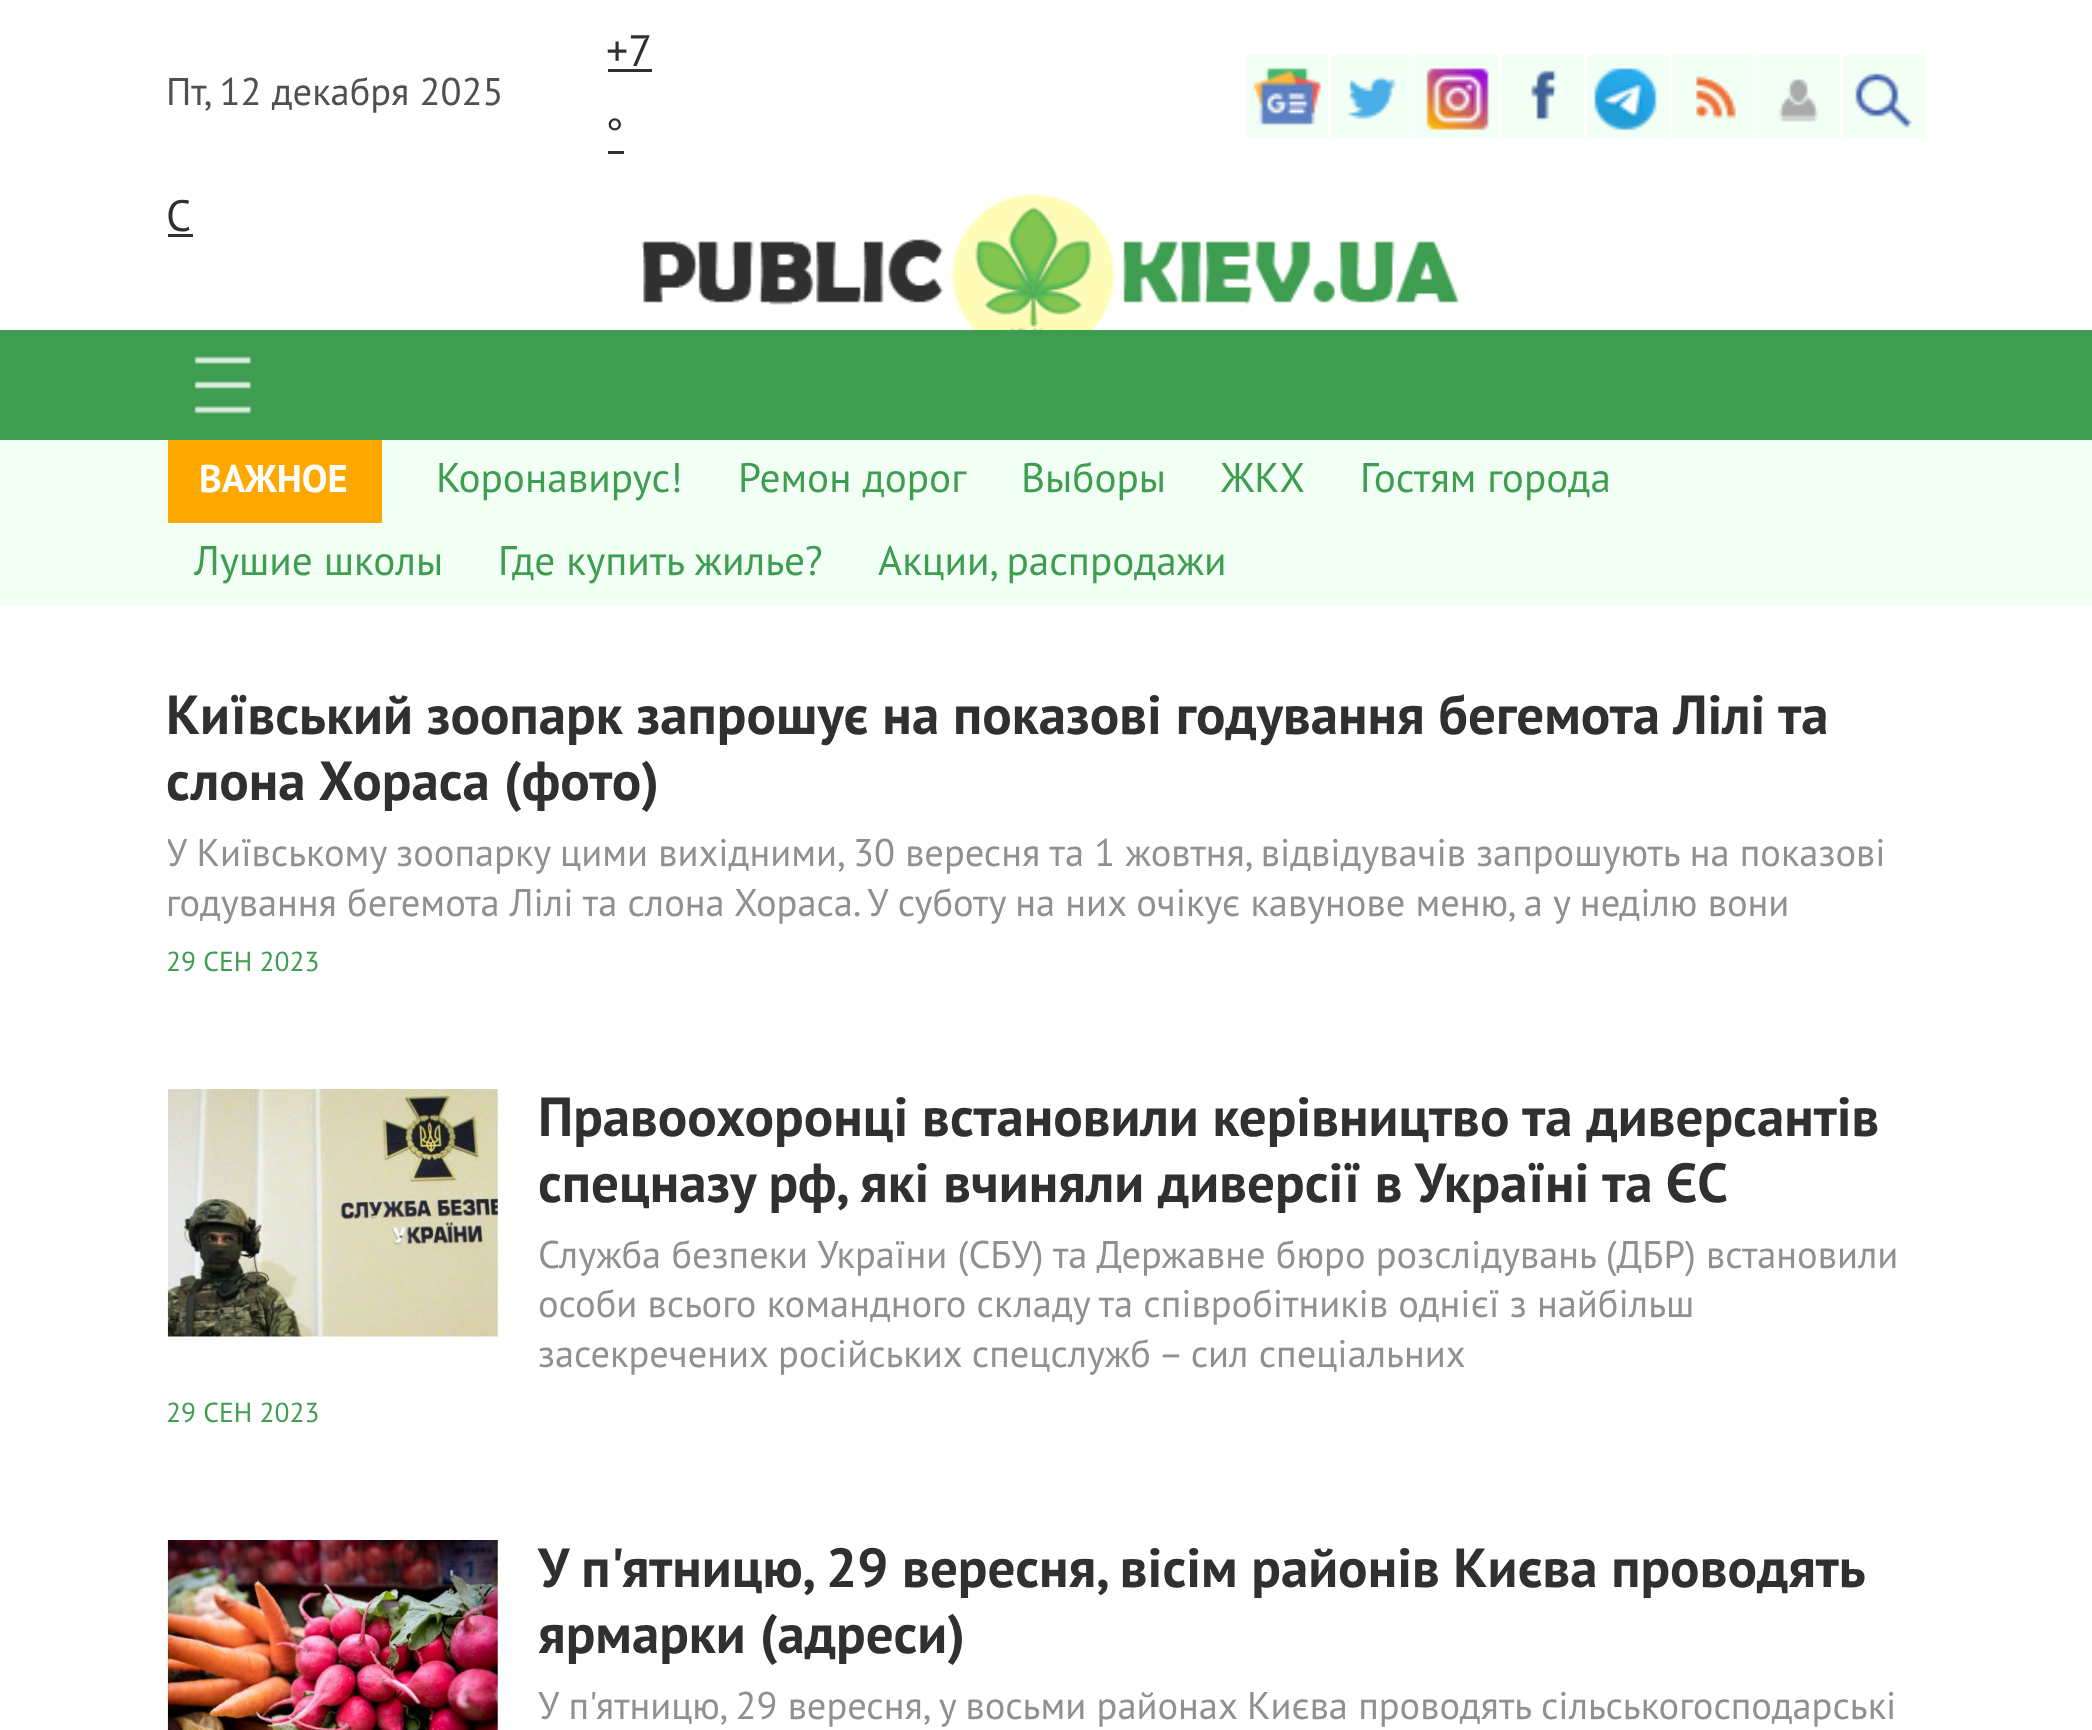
(async () => {
const canvas = document.querySelector("canvas")
canvas.width = 2092
canvas.height = 1730
const c = canvas.getContext("2d")
c.miterLimit = 4
c.fontKerning = "normal"
function T(s,x,y){c.fillText(s,x,y)}
function R(x,y,w,h){c.fillRect(x,y,w,h)}
async function I(src,x,y,w,h){const img=new Image();img.src=src;await img.decode();c.drawImage(img,x,y,w,h)}
c.fillStyle="#fff"
R(0,0,2092,1730)
c.font="44px PT Sans"
c.fillStyle="#303030"
T("+7",606,66)
R(608,69,44,3)
c.font="44px Liberation Sans"
T("°",606,149)
R(608,151,16,3)
c.font="44px PT Sans"
T("C",166,231)
R(168,234,25,3)
c.font="38.5px PT Sans"
c.fillStyle="#505050"
T("Пт, 12 декабря 2025",166,105)
c.fillStyle="#f2fff4"
R(1246,55,82,83)
await I("1.png",1253,68,68,57)
R(1331,55,83,83)
await I("2.png",1347,76,51,44)
R(1416,55,83,83)
await I("3.png",1426,68,63,63)
R(1502,55,82,83)
await I("4.png",1531,70,27,52)
R(1587,55,82,83)
await I("5.png",1594,68,63,63)
R(1672,55,83,83)
await I("6.png",1694,76,43,43)
R(1757,55,83,83)
await I("7.png",1778,79,41,43)
R(1843,55,82,83)
await I("8.png",1855,73,58,55)
await I("9.png",641,194,818,136)
c.fillStyle="#3e9d50"
R(0,330,2092,110)
await I("10.png",194,356,58,58)
c.fillStyle="#f2fff4"
R(0,440,2092,165)
c.fillStyle="#ffa800"
R(168,440,214,83)
c.font="bold 38.5px PT Sans"
c.fillStyle="#fff"
T("ВАЖНОЕ",199,492)
c.font="41.25px PT Sans"
c.fillStyle="#3e9d50"
T("Коронавирус!",436,492)
T("Ремон дорог",738,492)
T("Выборы",1021,492)
T("ЖКХ",1221,492)
T("Гостям города",1360,492)
T("Лушие школы",194,575)
T("Где купить жилье?",498,575)
T("Акции, распродажи",878,575)
c.font="bold 55px PT Sans"
c.fillStyle="#303030"
T("Київський зоопарк запрошує на показові годування бегемота Лілі та",166,734)
T("слона Хораса (фото)",166,800)
c.save()
c.beginPath()
c.rect(168,688,1732,319)
c.clip()
c.font="38.5px PT Sans"
c.fillStyle="#909090"
T("У Київському зоопарку цими вихідними, 30 вересня та 1 жовтня, відвідувачів запрошують на показові",166,866)
c.restore()
c.font="38.5px PT Sans"
c.fillStyle="#909090"
T("годування бегемота Лілі та слона Хораса. У суботу на них очікує кавунове меню, а у неділю вони",166,916)
c.font="27.5px PT Sans"
c.fillStyle="#3e9d50"
T("29 СЕН 2023",166,971)
await I("11.png",167,1089,331,248)
c.font="bold 55px PT Sans"
c.fillStyle="#303030"
T("Правоохоронці встановили керівництво та диверсантів",538,1136)
T("спецназу рф, які вчиняли диверсії в Україні та ЄС",538,1202)
c.font="38.5px PT Sans"
c.fillStyle="#909090"
T("Служба безпеки України (СБУ) та Державне бюро розслідувань (ДБР) встановили",538,1268)
T("особи всього командного складу та співробітників однієї з найбільш",538,1317)
T("засекречених російських спецслужб – сил спеціальних",538,1367)
c.font="27.5px PT Sans"
c.fillStyle="#3e9d50"
T("29 СЕН 2023",166,1422)
await I("12.png",167,1540,331,190)
c.wordSpacing="-0.25px"
c.font="bold 55px PT Sans"
c.fillStyle="#303030"
T("У п'ятницю, 29 вересня, вісім районів Києва проводять",538,1587)
c.wordSpacing="0px"
T("ярмарки (адреси)",538,1653)
c.font="38.5px PT Sans"
c.fillStyle="#909090"
T("У п'ятницю, 29 вересня, у восьми районах Києва проводять сільськогосподарські",538,1719)
})()
